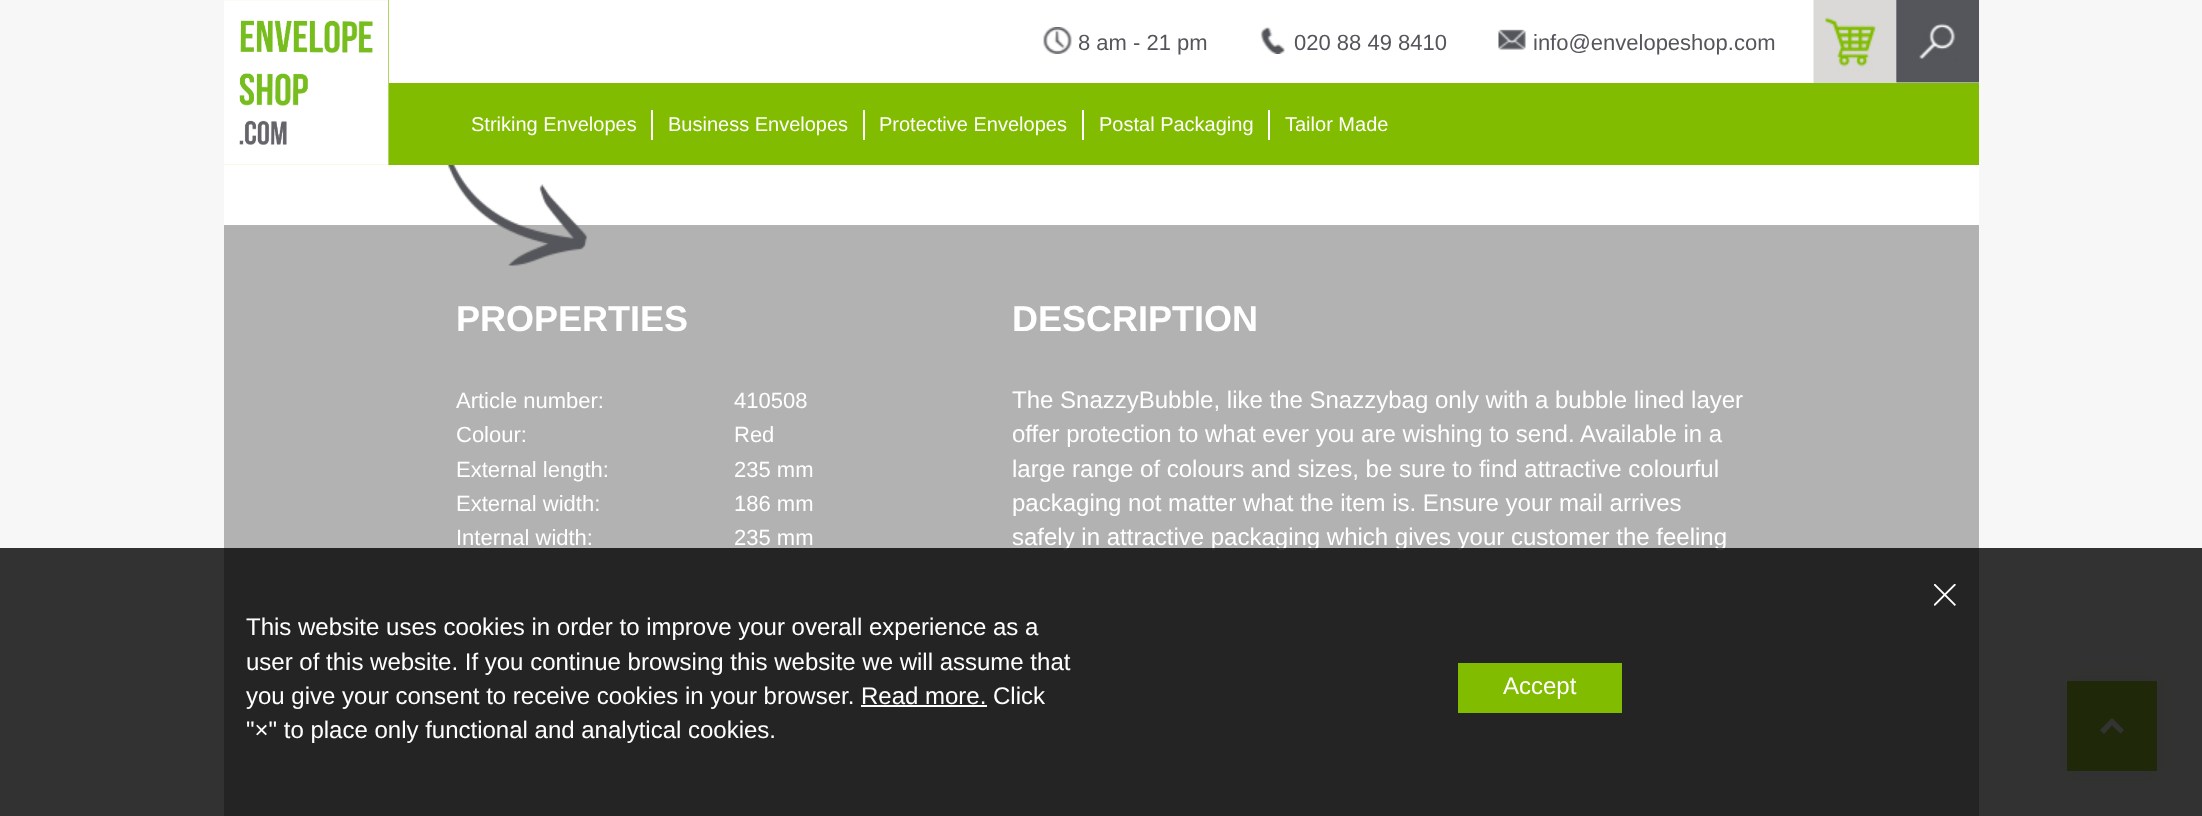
(async () => {
const canvas = document.querySelector("canvas")
canvas.width = 2202
canvas.height = 816
const c = canvas.getContext("2d")
c.miterLimit = 4
c.fontKerning = "normal"
function T(s,x,y){c.fillText(s,x,y)}
function R(x,y,w,h){c.fillRect(x,y,w,h)}
async function I(src,x,y,w,h){const img=new Image();img.src=src;await img.decode();c.drawImage(img,x,y,w,h)}
let path
c.fillStyle="#f8f7f7"
R(0,0,2202,816)
c.fillStyle="#81bc00"
R(224,0,1755,165)
await I("1.png",224,0,165,165)
c.fillStyle="#fff"
R(389,0,1590,83)
await I("2.png",1043,27,29,27)
c.font="22px Liberation Sans"
c.fillStyle="#54565b"
T("8 am - 21 pm",1078,50)
await I("3.png",1260,27,25,27)
T("020 88 49 8410",1294,50)
await I("4.png",1498,29,28,21)
T("info@envelopeshop.com",1533,50)
await I("5.png",1813,0,83,83)
await I("6.png",1896,0,83,83)
c.font="20px Liberation Sans"
c.fillStyle="#fff"
T("Striking Envelopes",471,131)
R(651,110,2,30)
T("Business Envelopes",668,131)
R(863,110,2,30)
T("Protective Envelopes",879,131)
R(1082,110,2,30)
T("Postal Packaging",1099,131)
R(1268,110,2,30)
T("Tailor Made",1285,131)
R(224,165,1755,60)
c.fillStyle="#b2b2b2"
R(224,225,1755,591)
await I("7.png",447,165,141,101)
c.font="bold 36px Liberation Sans"
c.fillStyle="#fff"
T("PROPERTIES",456,331)
c.font="22px Liberation Sans"
T("Article number:",456,408)
T("410508",734,408)
T("Colour:",456,442)
T("Red",734,442)
T("External length:",456,477)
T("235 mm",734,477)
T("External width:",456,511)
T("186 mm",734,511)
T("Internal width:",456,545)
T("235 mm",734,545)
c.font="bold 36px Liberation Sans"
T("DESCRIPTION",1012,331)
c.font="24px Liberation Sans"
T("The SnazzyBubble, like the Snazzybag only with a bubble lined layer",1012,408)
T("offer protection to what ever you are wishing to send. Available in a",1012,442)
T("large range of colours and sizes, be sure to find attractive colourful",1012,477)
T("packaging not matter what the item is. Ensure your mail arrives",1012,511)
T("safely in attractive packaging which gives your customer the feeling",1012,545)
c.fillStyle="#81bc000d"
c.filter="blur(7.5px)"
c.beginPath()
c.rect(2067,681,90,90)
c.fill()
c.filter="none"
c.fillStyle="#99c831"
R(2067,681,90,90)
c.fillStyle="#fff"
path = new Path2D("M2112 718l12 12l-3.5 3.5l-8.5-8l-8 8.5l-4-4z")
c.fill(path)
c.fillStyle="#000000cc"
R(0,548,2202,268)
await I("8.png",1934,584,22,22)
c.fillStyle="#fff"
T("This website uses cookies in order to improve your overall experience as a",246,635)
T("user of this website. If you continue browsing this website we will assume that",246,670)
T("you give your consent to receive cookies in your browser. Read more. Click",246,704)
R(861,705,126,2)
T("\"×\" to place only functional and analytical cookies.",246,738)
c.fillStyle="#81bc00"
R(1458,663,164,50)
c.fillStyle="#fff"
T("Accept",1503,694)
})()
